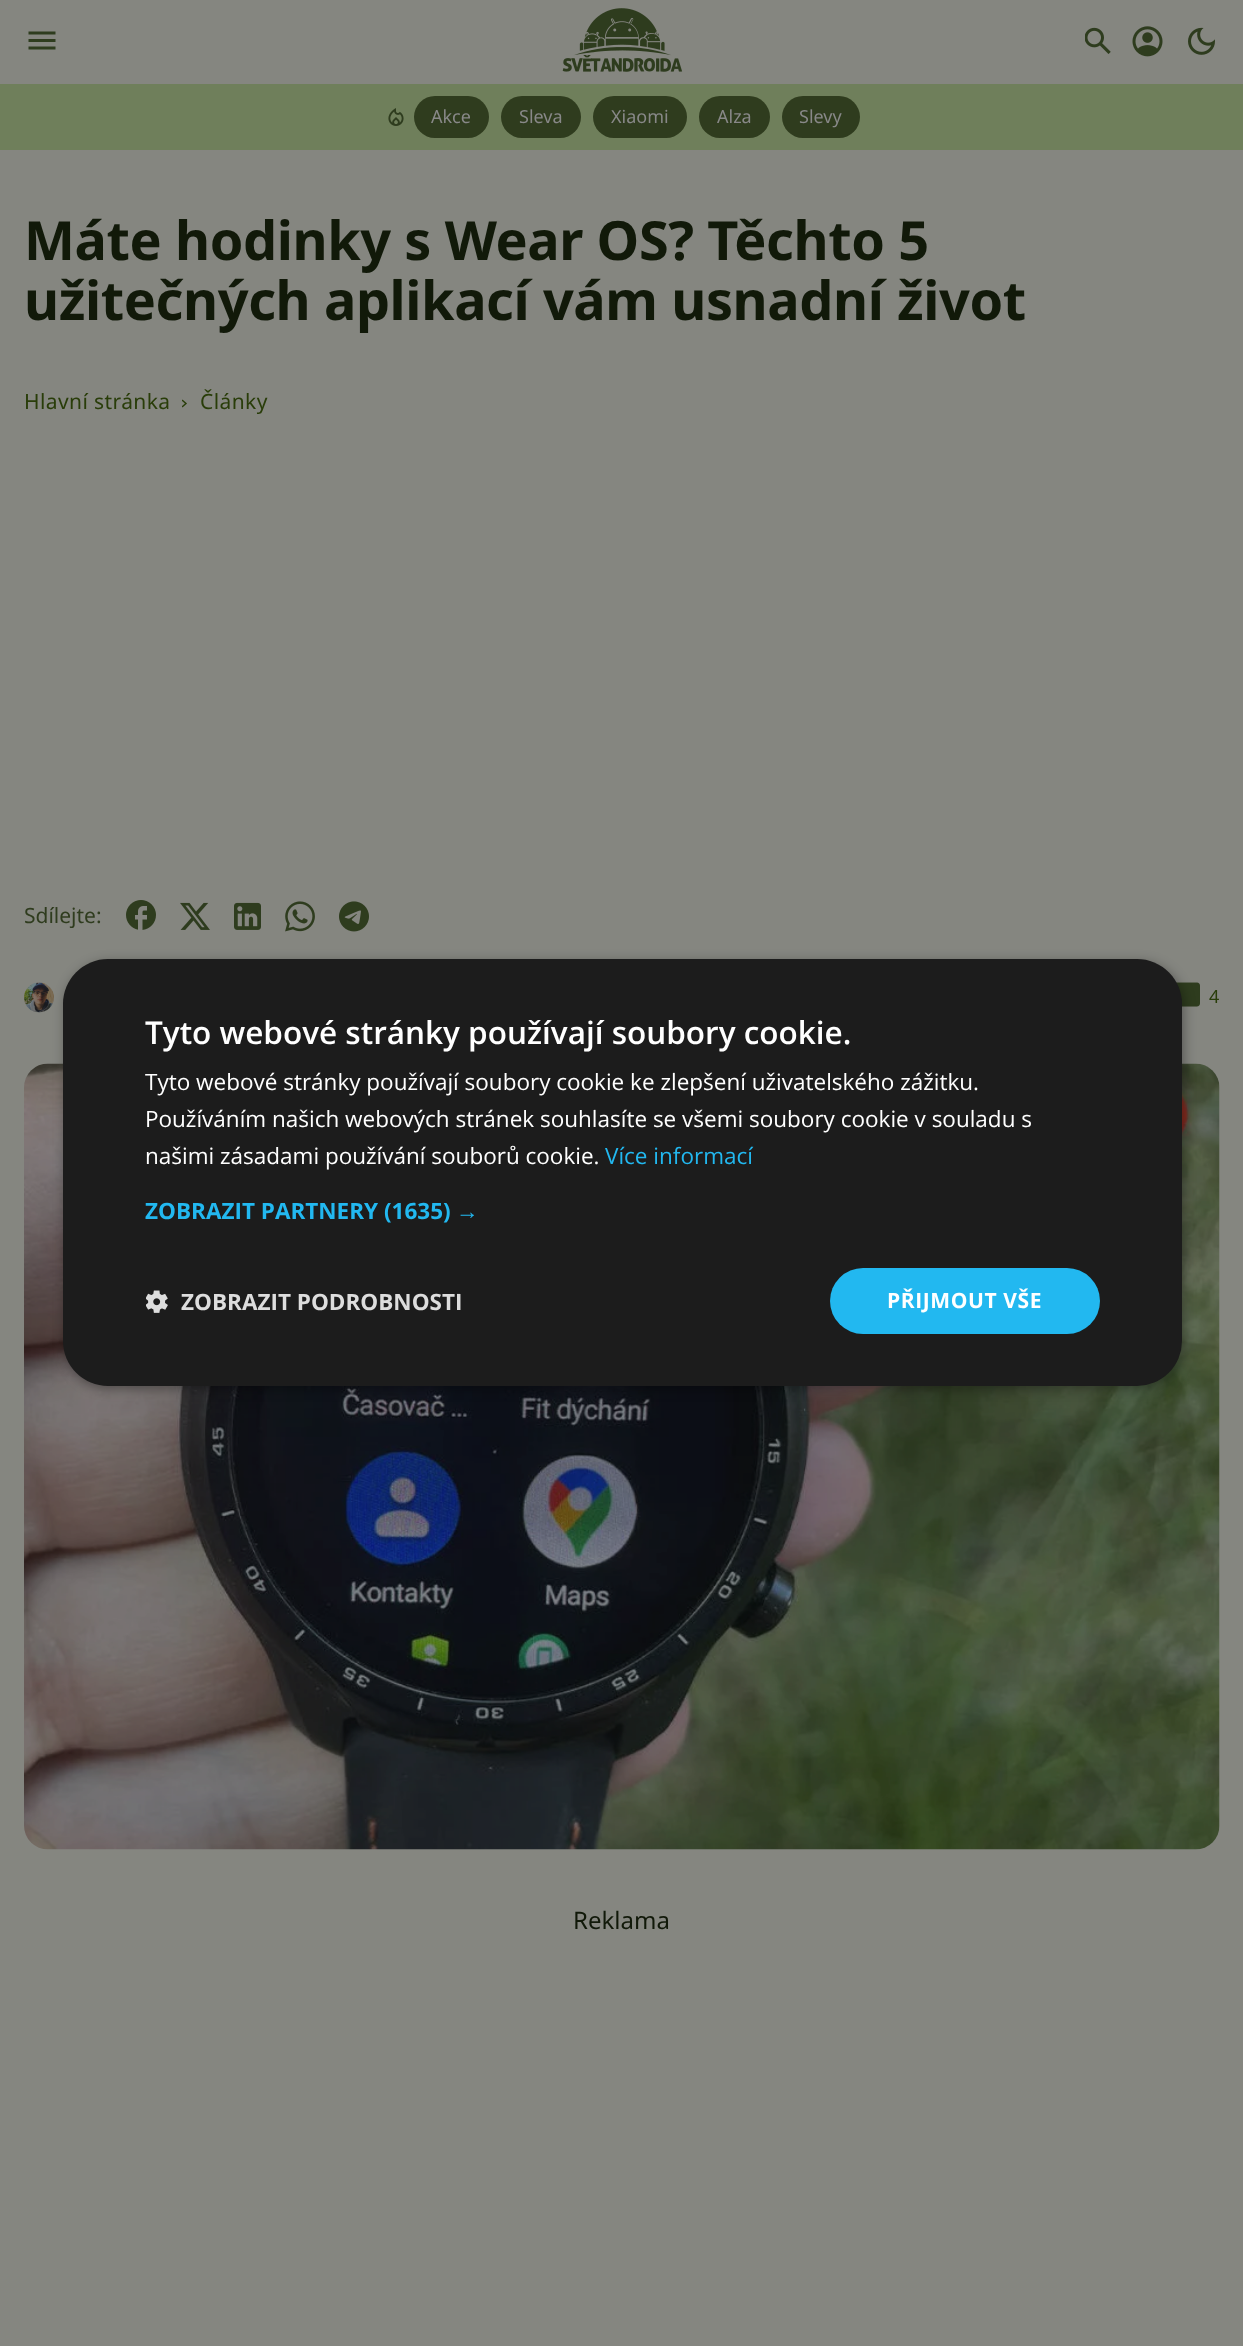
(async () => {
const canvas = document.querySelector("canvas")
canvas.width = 1243
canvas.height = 2346
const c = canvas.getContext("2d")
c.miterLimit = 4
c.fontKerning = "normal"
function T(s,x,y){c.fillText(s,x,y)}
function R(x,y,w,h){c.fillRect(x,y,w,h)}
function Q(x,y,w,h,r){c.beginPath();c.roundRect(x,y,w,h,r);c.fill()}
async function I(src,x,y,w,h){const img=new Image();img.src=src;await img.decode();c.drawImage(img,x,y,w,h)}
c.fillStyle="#6f7f5b"
R(0,0,1243,2346)
c.fillStyle="#858680"
R(0,0,1243,84)
await I("1.png",28,31,28,19)
await I("2.png",562,8,121,64)
await I("3.png",1085,27,26,27)
await I("4.png",1132,26,31,31)
await I("5.png",1188,27,27,28)
await I("6.png",388,108,16,18)
c.fillStyle="#2f3c1e"
Q(414,96,75,42,21)
c.font="18px Noto Sans"
c.fillStyle="#888"
T("Akce",431,123)
c.fillStyle="#2f3c1e"
Q(501,96,80,42,21)
c.fillStyle="#888"
T("Sleva",519,123)
c.fillStyle="#2f3c1e"
Q(593,96,94,42,21)
c.fillStyle="#888"
T("Xiaomi",611,123)
c.fillStyle="#2f3c1e"
Q(699,96,71,42,21)
c.fillStyle="#888"
T("Alza",717,123)
c.fillStyle="#2f3c1e"
Q(782,96,78,42,21)
c.fillStyle="#888"
T("Slevy",799,123)
c.fillStyle="#858680"
R(0,150,1243,2196)
c.letterSpacing="-0.4px"
c.font="bold 54px Noto Sans"
c.fillStyle="#111909"
T("Máte hodinky s Wear OS? Těchto 5",24,260)
T("užitečných aplikací vám usnadní život",24,320)
c.letterSpacing="0.4px"
c.font="21px Noto Sans"
c.fillStyle="#293d09"
T("Hlavní stránka",24,409)
await I("7.png",182,399,5,9)
T("Články",200,409)
c.letterSpacing="0px"
c.fillStyle="#2f3c1e"
T("Sdílejte:",24,923)
await I("8.png",126,900,30,30)
await I("9.png",180,902,30,28)
await I("10.png",234,902,27,28)
await I("11.png",285,901,30,31)
await I("12.png",339,901,30,31)
await I("13.png",24,982,30,31)
await I("14.png",1176,982,24,25)
c.letterSpacing="0.4px"
c.font="18px Noto Sans"
c.fillStyle="#293d09"
T("4",1209,1003)
await I("15.png",24,1063,1196,787)
c.letterSpacing="0px"
c.font="24px Noto Sans"
c.fillStyle="#111909"
T("Reklama",573,1929)
c.fillStyle="#00000059"
c.filter="blur(6px)"
c.beginPath()
c.roundRect(65,962,1119,427,45)
c.fill()
c.filter="none"
c.fillStyle="#1c1c1c"
Q(63,959,1119,427,45)
c.font="600 31.5px Open Sans"
c.fillStyle="#fff"
T("Tyto webové stránky používají soubory cookie.",145,1044)
c.font="22.5px Open Sans"
T("Tyto webové stránky používají soubory cookie ke zlepšení uživatelského zážitku.",145,1090)
T("Používáním našich webových stránek souhlasíte se všemi soubory cookie v souladu s",145,1127)
T("našimi zásadami používání souborů cookie.",145,1164)
c.fillStyle="#22b8f0"
T("Více informací",605,1164)
c.font="bold 22.5px Open Sans"
T("ZOBRAZIT PARTNERY (1635)",145,1219)
c.font="bold 22.5px Liberation Sans"
T("→",456,1219)
await I("16.png",146,1290,22,23)
c.font="bold 22.5px Open Sans"
c.fillStyle="#ddd"
T("ZOBRAZIT PODROBNOSTI",181,1310)
c.fillStyle="#22b8f0"
Q(830,1268,270,66,33)
c.letterSpacing="0.6px"
c.font="bold 21px Open Sans"
c.fillStyle="#fff"
T("PŘIJMOUT VŠE",887,1308)
})()
